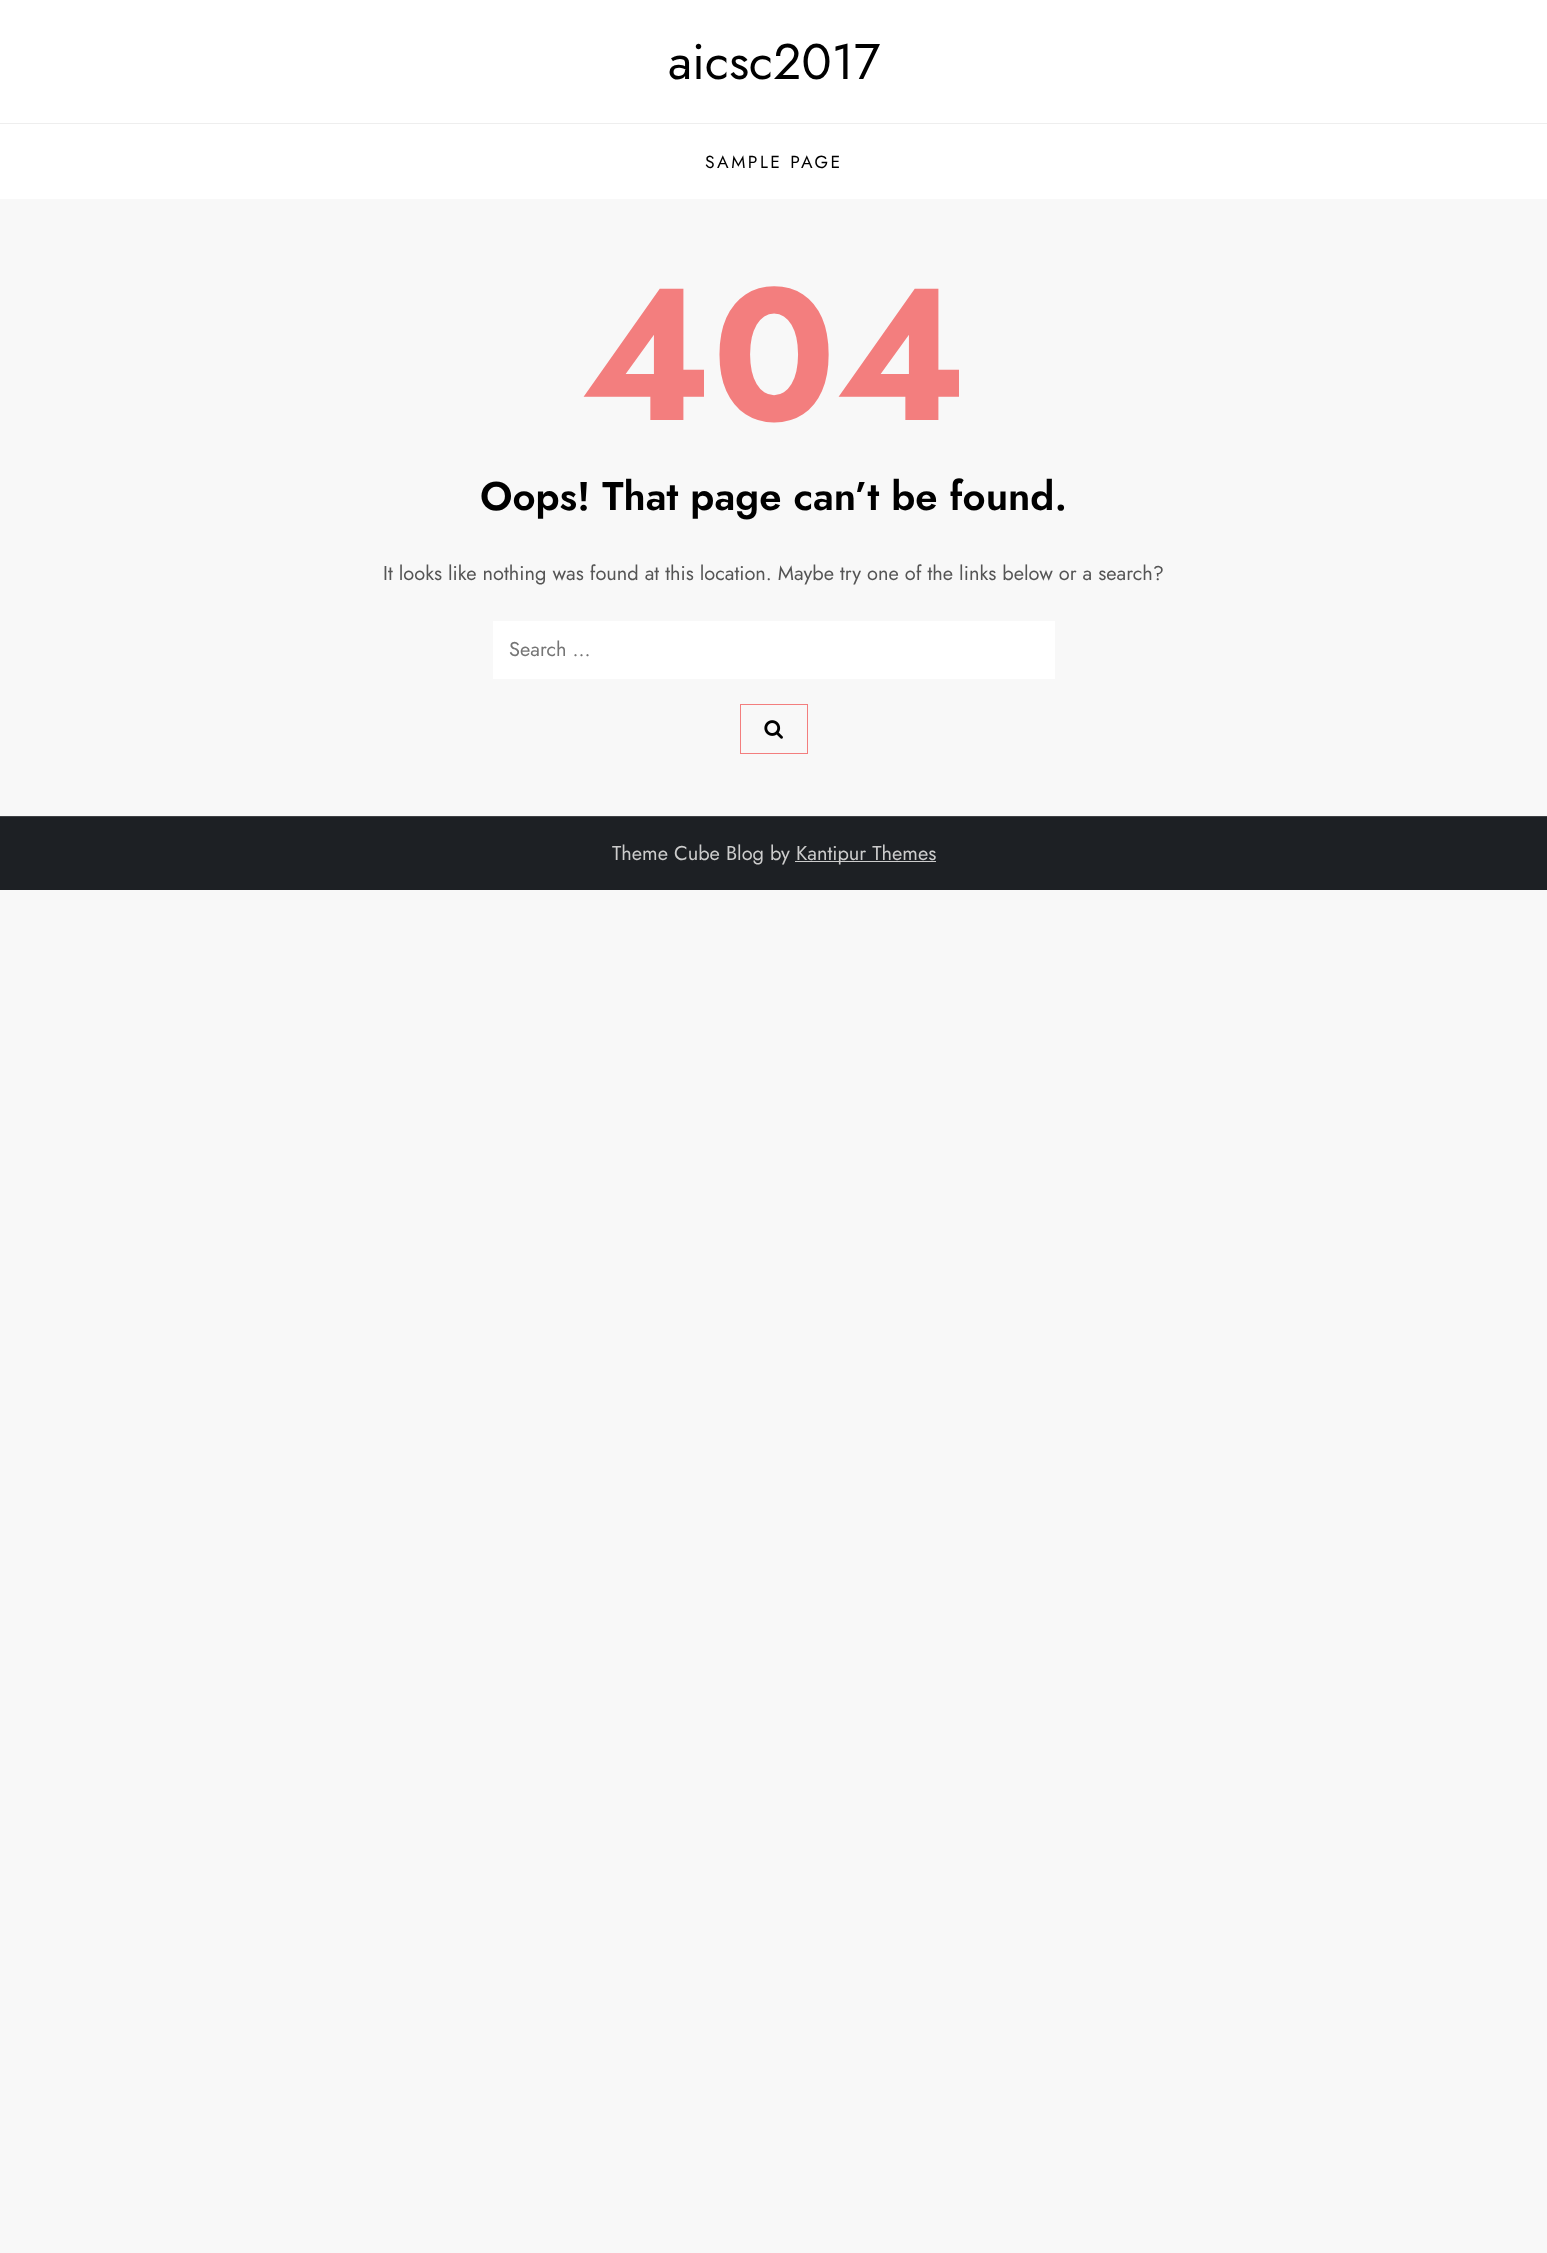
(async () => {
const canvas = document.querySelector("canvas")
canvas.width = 1547
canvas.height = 2253
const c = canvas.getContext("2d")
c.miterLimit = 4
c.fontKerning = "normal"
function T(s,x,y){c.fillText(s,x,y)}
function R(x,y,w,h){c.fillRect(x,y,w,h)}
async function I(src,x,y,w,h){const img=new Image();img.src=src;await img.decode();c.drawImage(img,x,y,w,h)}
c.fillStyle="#f8f8f8"
R(0,0,1547,2253)
c.fillStyle="#fff"
R(0,0,1547,199)
c.font="50px Jost"
c.fillStyle="#000"
T("aicsc2017",668,79)
c.fillStyle="#eee"
R(0,123,1547,1)
c.letterSpacing="2.5px"
c.font="17.5px Jost"
c.fillStyle="#000"
T("SAMPLE PAGE",705,168)
c.letterSpacing="0px"
c.font="bold 187.5px Jost"
c.fillStyle="#f37e7e"
T("404",581,420)
c.font="600 40px Jost"
c.fillStyle="#000"
T("Oops! That page can’t be found.",480,510)
c.font="20px Jost"
c.fillStyle="#555"
T("It looks like nothing was found at this location. Maybe try one of the links below or a search?",383,580)
c.fillStyle="#fff"
R(493,621,562,58)
c.fillStyle="#757575"
T("Search …",509,656)
c.strokeStyle="#f37e7e"
c.strokeRect(740.5,704.5,67,49)
await I("1.png",764,720,19,19)
c.fillStyle="#1d2024"
R(0,817,1547,73)
c.fillStyle="#3f4145"
R(0,816,1547,1)
c.fillStyle="#ccc"
T("Theme Cube Blog by",612,860)
R(795,861,141,1)
T("Kantipur Themes",796,860)
})()
